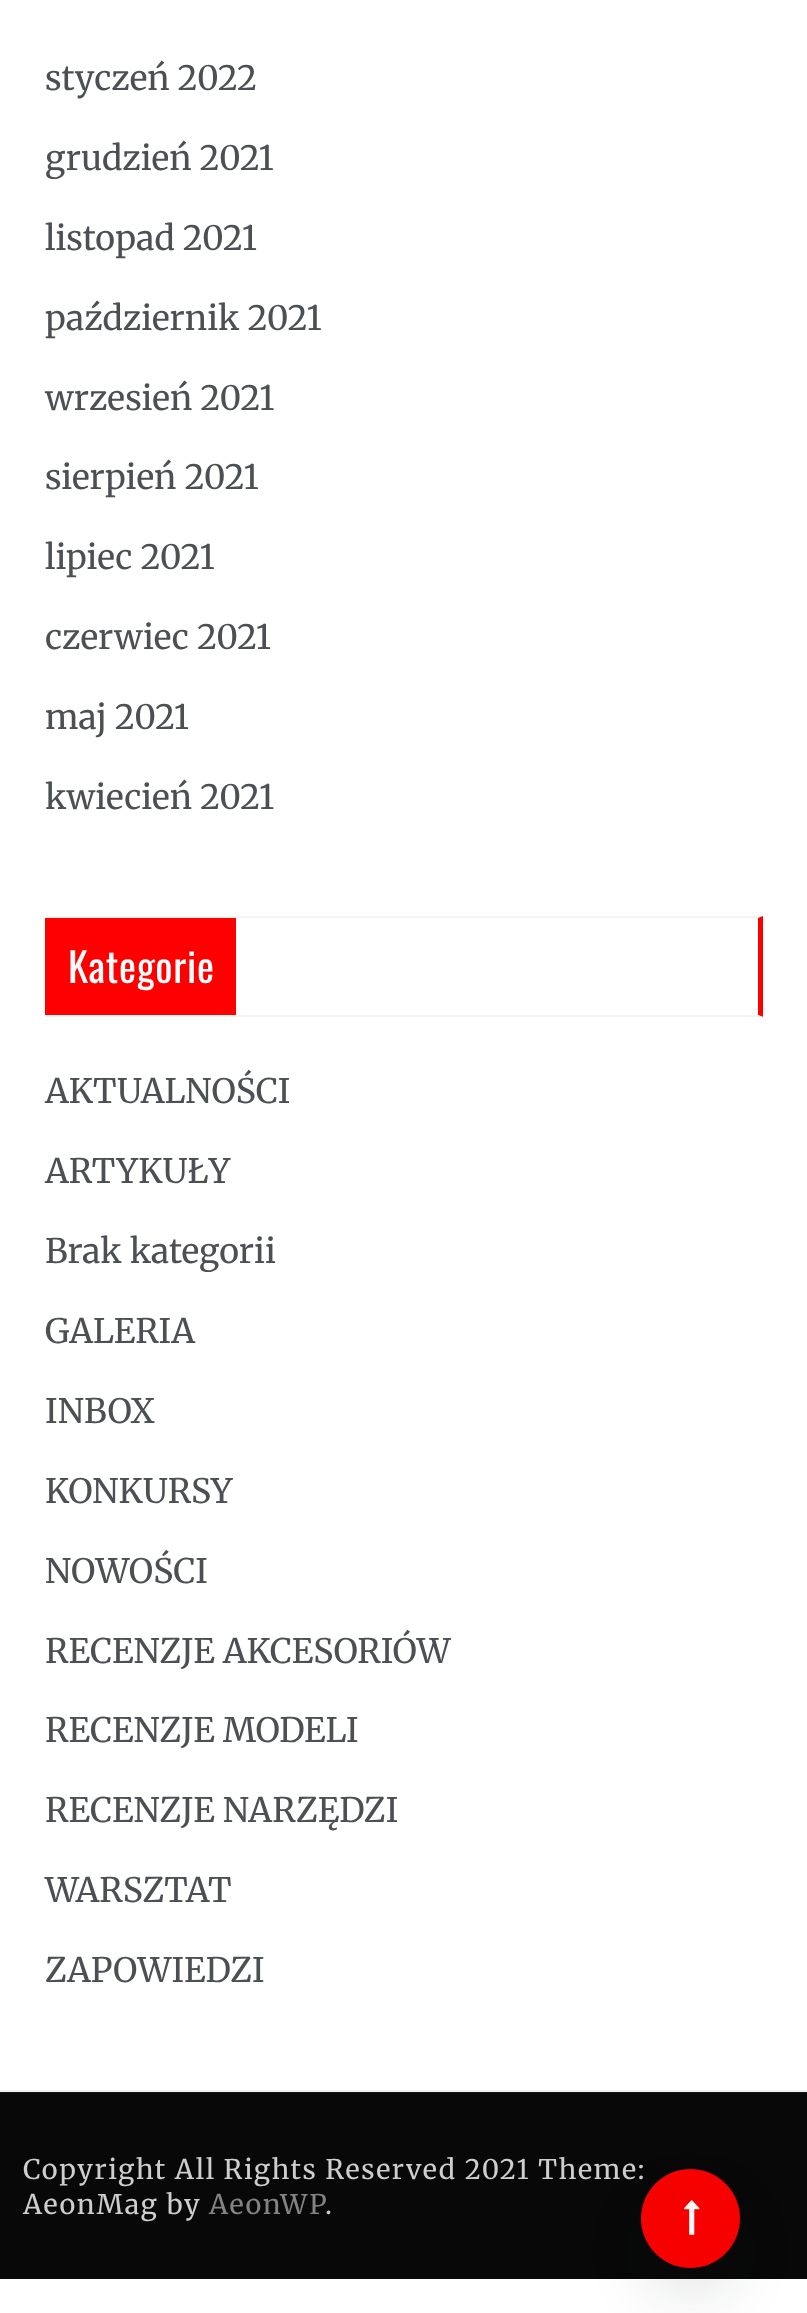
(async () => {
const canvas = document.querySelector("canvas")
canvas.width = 807
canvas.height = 2313
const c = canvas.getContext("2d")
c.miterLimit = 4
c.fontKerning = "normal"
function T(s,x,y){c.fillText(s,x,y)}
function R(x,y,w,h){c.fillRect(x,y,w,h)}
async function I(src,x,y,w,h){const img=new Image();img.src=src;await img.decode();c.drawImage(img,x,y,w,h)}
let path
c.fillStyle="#fff"
R(0,0,807,2313)
c.font="300 33.75px Merriweather"
c.fillStyle="#4c4f53"
T("styczeń 2022",45,90)
T("grudzień 2021",45,170)
T("listopad 2021",45,250)
T("październik 2021",45,330)
T("wrzesień 2021",45,410)
T("sierpień 2021",45,489)
T("lipiec 2021",45,569)
T("czerwiec 2021",45,649)
T("maj 2021",45,729)
T("kwiecień 2021",45,809)
c.fillStyle="#f4f4f4"
path = new Path2D("M45 916h718l-5 2h-713z")
c.fill(path)
c.fillStyle="#f00"
path = new Path2D("M763 916v101l-5-2v-97z")
c.fill(path)
c.fillStyle="#f4f4f4"
path = new Path2D("M763 1017h-718v-2h713z")
c.fill(path)
c.fillStyle="#f00"
R(45,918,191,97)
c.letterSpacing="0.75px"
c.font="40.5px Oswald"
c.fillStyle="#fff"
T("Kategorie",68,983)
c.letterSpacing="0px"
c.font="300 33.75px Merriweather"
c.fillStyle="#4c4f53"
T("AKTUALNOŚCI",45,1103)
T("ARTYKUŁY",45,1183)
T("Brak kategorii",45,1263)
T("GALERIA",45,1343)
T("INBOX",45,1423)
T("KONKURSY",45,1503)
T("NOWOŚCI",45,1583)
T("RECENZJE AKCESORIÓW",45,1663)
T("RECENZJE MODELI",45,1742)
T("RECENZJE NARZĘDZI",45,1822)
T("WARSZTAT",45,1902)
T("ZAPOWIEDZI",45,1982)
c.fillStyle="#131313"
R(0,2092,807,1)
c.fillStyle="#f1f1f1"
R(0,2090,807,2)
c.fillStyle="#080808"
R(0,2093,807,186)
c.letterSpacing="1.55px"
c.font="300 27px Merriweather"
c.fillStyle="#cecece"
T("Copyright All Rights Reserved 2021 Theme:",23,2179)
T("AeonMag by",23,2214)
c.fillStyle="#838383"
T("AeonWP",209,2214)
c.fillStyle="#cecece"
T(".",325,2214)
c.fillStyle="#0e111426"
c.filter="blur(31.5px)"
c.beginPath()
c.roundRect(650,2210,81,81,40.5)
c.fill()
c.filter="none"
c.fillStyle="#f70000"
c.beginPath()
c.arc(690.5,2218.5,49.5,0,7)
c.fill()
await I("1.png",684,2200,16,35)
})()
